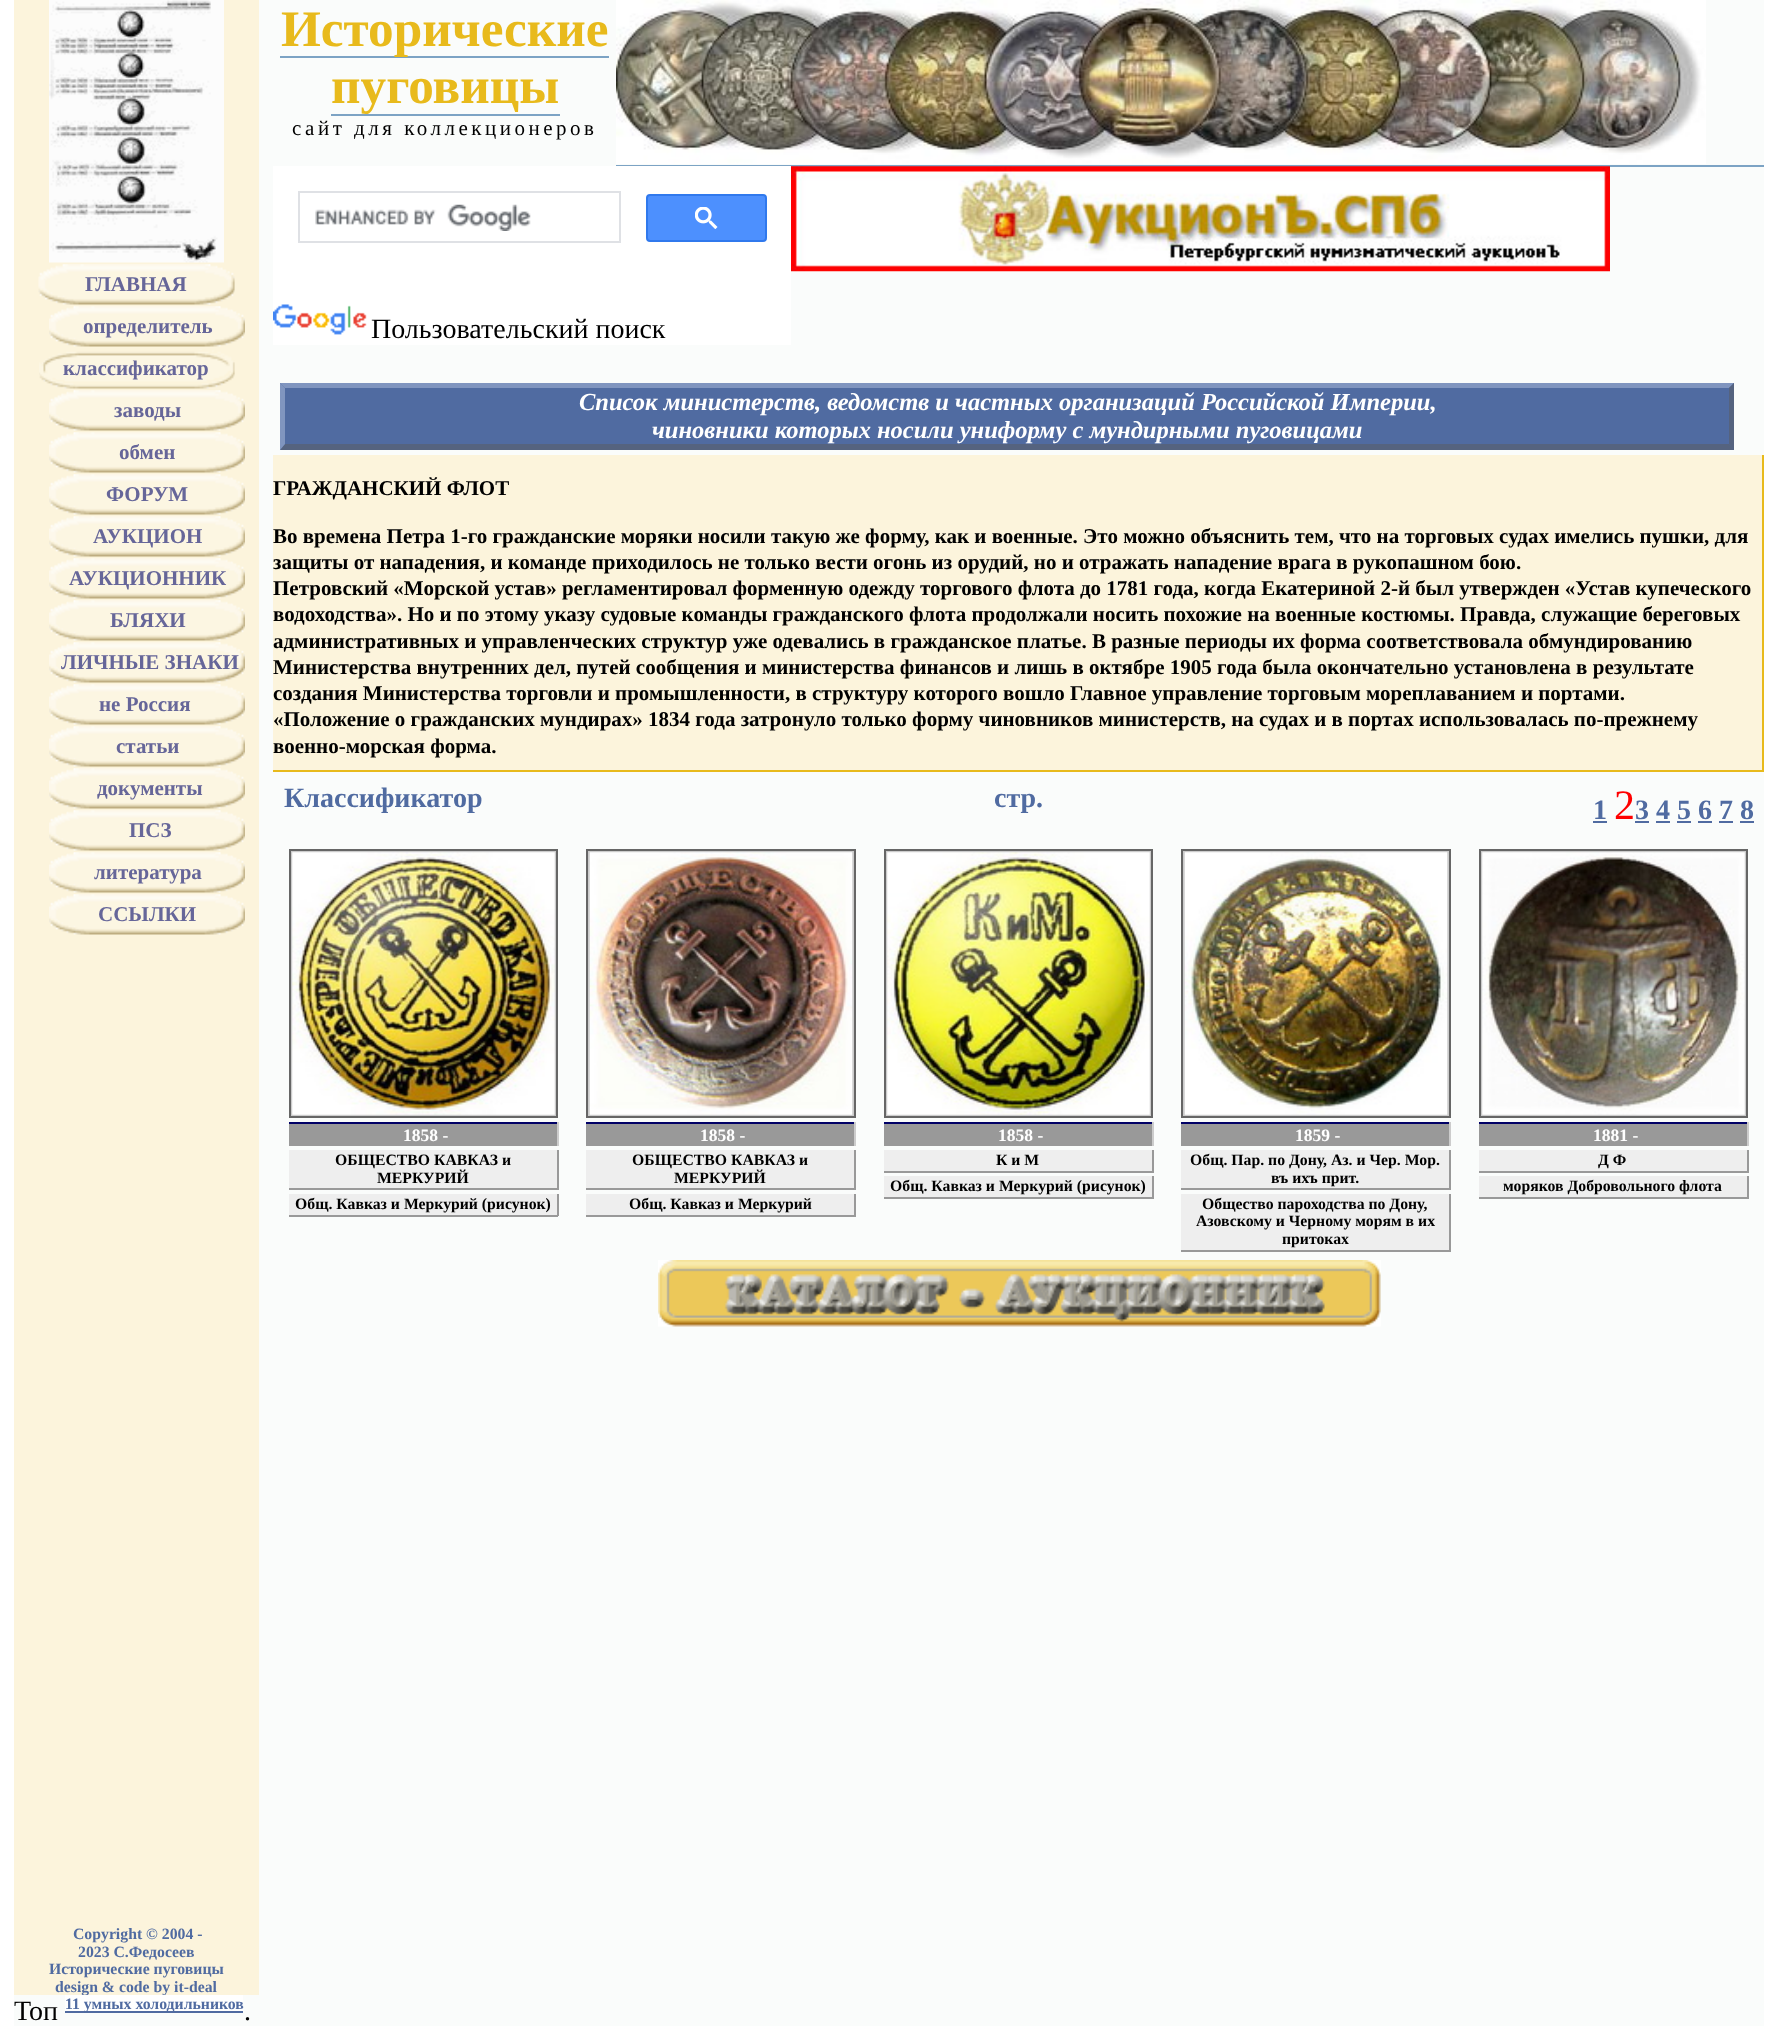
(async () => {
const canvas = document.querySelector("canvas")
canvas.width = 1778
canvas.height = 2026
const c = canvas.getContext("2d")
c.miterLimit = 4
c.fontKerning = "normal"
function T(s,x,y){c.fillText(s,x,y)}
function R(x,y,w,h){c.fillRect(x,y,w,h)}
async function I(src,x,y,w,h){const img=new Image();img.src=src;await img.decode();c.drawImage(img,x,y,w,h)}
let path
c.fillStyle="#fff"
R(0,0,1778,2026)
c.fillStyle="#fafcfb"
R(14,0,1750,2026)
c.fillStyle="#fcf4dc"
R(14,0,245,1995)
await I("1.png",49,0,175,263)
await I("2.png",38,264,197,41)
c.font="bold 21px Liberation Serif"
c.fillStyle="#669"
T("ГЛАВНАЯ",85,291)
await I("3.png",49,306,196,41)
T("определитель",83,333)
await I("4.png",39,349,196,40)
T("классификатор",63,375)
await I("3.png",49,390,196,41)
T("заводы",114,417)
await I("3.png",49,432,196,41)
T("обмен",119,459)
await I("3.png",49,474,196,41)
T("ФОРУМ",106,501)
await I("3.png",49,516,196,41)
T("АУКЦИОН",93,543)
await I("3.png",49,558,196,41)
T("АУКЦИОННИК",69,585)
await I("3.png",49,600,196,41)
T("БЛЯХИ",110,627)
await I("3.png",49,642,196,41)
T("ЛИЧНЫЕ ЗНАКИ",61,669)
await I("3.png",49,684,196,41)
T("не Россия",99,711)
await I("3.png",49,726,196,41)
T("статьи",116,753)
await I("3.png",49,768,196,41)
T("документы",97,795)
await I("3.png",49,810,196,41)
T("ПСЗ",129,837)
await I("3.png",49,852,196,41)
T("литература",94,879)
await I("3.png",49,894,196,41)
T("ССЫЛКИ",98,921)
c.font="bold 15.75px Liberation Serif"
c.fillStyle="#506ba1"
T("Copyright © 2004 -",73,1939)
T("2023 С.Федосеев",78,1957)
T("Исторические пуговицы",49,1974)
T("design & code by it-deal",55,1992)
c.font="28px Liberation Serif"
c.fillStyle="#000"
T("Топ",14,2020)
c.fillStyle="#fff"
R(65,1995,178,16)
c.fillStyle="#506ba1"
R(65,2011,178,2)
c.font="bold 15.75px Liberation Serif"
T("11 умных холодильников",65,2009)
c.font="28px Liberation Serif"
c.fillStyle="#000"
T(".",244,2020)
c.fillStyle="#7ca3c4"
R(280,56,329,2)
c.font="bold 51.25px Liberation Serif"
c.fillStyle="#e8ba1c"
T("Исторические",281,46)
c.fillStyle="#7ca3c4"
R(331,114,229,2)
c.fillStyle="#e8ba1c"
T("пуговицы",331,103)
c.letterSpacing="3.5px"
c.font="21px Liberation Serif"
c.fillStyle="#000"
T("сайт для коллекционеров",292,135)
c.fillStyle="#7ca3c4"
R(616,165,1148,2)
await I("5.png",616,0,1090,164)
await I("6.png",791,166,819,106)
c.fillStyle="#fff"
R(273,166,518,179)
c.strokeStyle="#dfe1e5"
c.lineWidth=2
c.strokeRect(299,192,321,50)
await I("7.png",315,204,216,27)
c.fillStyle="#4d90fe"
c.beginPath()
c.roundRect(647,195,119,46,3)
c.fill()
c.strokeStyle="#3079ed"
c.stroke()
await I("8.png",695,207,23,22)
await I("9.png",273,304,94,31)
c.letterSpacing="0px"
c.font="28px Liberation Serif"
c.fillStyle="#000"
T("Пользовательский поиск",371,338)
c.fillStyle="#506ba1"
R(280,383,1454,67)
c.fillStyle="#8095bf"
path = new Path2D("M280 383h1454l-5 5h-1444z")
c.fill(path)
c.fillStyle="#55637f"
path = new Path2D("M1734 383v67l-5-6v-56z")
c.fill(path)
path = new Path2D("M1734 450h-1454l5-6h1444z")
c.fill(path)
c.fillStyle="#8095bf"
path = new Path2D("M280 450v-67l5 5v56z")
c.fill(path)
c.font="italic bold 24.5px Liberation Serif"
c.fillStyle="#fff"
T("Список министерств, ведомств и частных организаций Российской Империи,",579,410)
T("чиновники которых носили униформу с мундирными пуговицами",652,438)
c.fillStyle="#fcf4dc"
R(273,455,1489,315)
c.fillStyle="#e8ba1c"
R(1762,455,2,317)
R(273,770,1491,2)
c.font="bold 21px Liberation Serif"
c.fillStyle="#000"
T("ГРАЖДАНСКИЙ ФЛОТ",273,495)
T("Во времена Петра 1-го гражданские моряки носили такую же форму, как и военные. Это можно объяснить тем, что на торговых судах имелись пушки, для",273,543)
T("защиты от нападения, и команде приходилось не только вести огонь из орудий, но и отражать нападение врага в рукопашном бою.",273,569)
T("Петровский «Морской устав» регламентировал форменную одежду торгового флота до 1781 года, когда Екатериной 2-й был утвержден «Устав купеческого",273,595)
T("водоходства». Но и по этому указу судовые команды гражданского флота продолжали носить похожие на военные костюмы. Правда, служащие береговых",273,621)
T("административных и управленческих структур уже одевались в гражданское платье. В разные периоды их форма соответствовала обмундированию",273,648)
T("Министерства внутренних дел, путей сообщения и министерства финансов и лишь в октябре 1905 года была окончательно установлена в результате",273,674)
T("создания Министерства торговли и промышленности, в структуру которого вошло Главное управление торговым мореплаванием и портами.",273,700)
T("«Положение о гражданских мундирах» 1834 года затронуло только форму чиновников министерств, на судах и в портах использовалась по-прежнему",273,726)
T("военно-морская форма.",273,753)
c.font="bold 28px Liberation Serif"
c.fillStyle="#506ba1"
T("Классификатор",284,807)
T("стр.",994,807)
T("1",1593,819)
R(1593,821,14,2)
c.font="42px Liberation Serif"
c.fillStyle="#f00"
T("2",1614,819)
c.font="bold 28px Liberation Serif"
c.fillStyle="#506ba1"
T("3 4 5 6 7 8",1635,819)
R(1635,821,14,2)
R(1656,821,14,2)
R(1677,821,14,2)
R(1698,821,14,2)
R(1719,821,14,2)
R(1740,821,14,2)
c.fillStyle="#ccc"
c.beginPath()
c.rect(290,850,267,267)
c.fill()
c.strokeStyle="#666"
c.stroke()
await I("10.png",292,852,263,263)
c.fillStyle="#999"
R(289,1124,268,22)
c.fillStyle="#006"
R(289,1122,269,2)
c.fillStyle="#ccc"
R(557,1122,2,24)
c.font="bold 17.5px Liberation Serif"
c.fillStyle="#fff"
T("1858 -",403,1141)
c.fillStyle="#eee"
R(289,1150,268,38)
c.fillStyle="#999"
R(557,1150,2,40)
R(289,1188,269,2)
c.font="bold 15.75px Liberation Serif"
c.fillStyle="#000"
T("ОБЩЕСТВО КАВКАЗ и",335,1165)
T("МЕРКУРИЙ",377,1183)
c.fillStyle="#eee"
R(289,1194,268,21)
c.fillStyle="#999"
R(557,1194,2,22)
R(289,1215,269,2)
c.fillStyle="#000"
T("Общ. Кавказ и Меркурий (рисунок)",295,1209)
c.fillStyle="#ccc"
c.beginPath()
c.rect(587,850,268,267)
c.fill()
c.stroke()
await I("11.png",589,852,264,263)
c.fillStyle="#999"
R(586,1124,268,22)
c.fillStyle="#006"
R(586,1122,270,2)
c.fillStyle="#ccc"
R(854,1122,2,24)
c.font="bold 17.5px Liberation Serif"
c.fillStyle="#fff"
T("1858 -",700,1141)
c.fillStyle="#eee"
R(586,1150,268,38)
c.fillStyle="#999"
R(854,1150,2,40)
R(586,1188,270,2)
c.font="bold 15.75px Liberation Serif"
c.fillStyle="#000"
T("ОБЩЕСТВО КАВКАЗ и",632,1165)
T("МЕРКУРИЙ",674,1183)
c.fillStyle="#eee"
R(586,1194,268,21)
c.fillStyle="#999"
R(854,1194,2,22)
R(586,1215,270,2)
c.fillStyle="#000"
T("Общ. Кавказ и Меркурий",629,1209)
c.fillStyle="#ccc"
c.beginPath()
c.rect(885,850,267,267)
c.fill()
c.stroke()
await I("12.png",887,852,263,263)
c.fillStyle="#999"
R(884,1124,268,22)
c.fillStyle="#006"
R(884,1122,269,2)
c.fillStyle="#ccc"
R(1152,1122,2,24)
c.font="bold 17.5px Liberation Serif"
c.fillStyle="#fff"
T("1858 -",998,1141)
c.fillStyle="#eee"
R(884,1150,268,21)
c.fillStyle="#999"
R(1152,1150,2,23)
R(884,1171,269,2)
c.font="bold 15.75px Liberation Serif"
c.fillStyle="#000"
T("К и М",996,1165)
c.fillStyle="#eee"
R(884,1176,268,21)
c.fillStyle="#999"
R(1152,1176,2,23)
R(884,1197,269,2)
c.fillStyle="#000"
T("Общ. Кавказ и Меркурий (рисунок)",890,1191)
c.fillStyle="#ccc"
c.beginPath()
c.rect(1182,850,268,267)
c.fill()
c.stroke()
await I("13.png",1184,852,264,263)
c.fillStyle="#999"
R(1181,1124,268,22)
c.fillStyle="#006"
R(1181,1122,270,2)
c.fillStyle="#ccc"
R(1449,1122,2,24)
c.font="bold 17.5px Liberation Serif"
c.fillStyle="#fff"
T("1859 -",1295,1141)
c.fillStyle="#eee"
R(1181,1150,268,38)
c.fillStyle="#999"
R(1449,1150,2,40)
R(1181,1188,270,2)
c.font="bold 15.75px Liberation Serif"
c.fillStyle="#000"
T("Общ. Пар. по Дону, Аз. и Чер. Мор.",1190,1165)
T("въ ихъ прит.",1271,1183)
c.fillStyle="#eee"
R(1181,1194,268,56)
c.fillStyle="#999"
R(1449,1194,2,57)
R(1181,1250,270,2)
c.fillStyle="#000"
T("Общество пароходства по Дону,",1202,1209)
T("Азовскому и Черному морям в их",1196,1226)
T("притоках",1282,1244)
c.fillStyle="#ccc"
c.beginPath()
c.rect(1480,850,267,267)
c.fill()
c.stroke()
await I("14.png",1482,852,263,263)
c.fillStyle="#999"
R(1479,1124,268,22)
c.fillStyle="#006"
R(1479,1122,269,2)
c.fillStyle="#ccc"
R(1747,1122,2,24)
c.font="bold 17.5px Liberation Serif"
c.fillStyle="#fff"
T("1881 -",1593,1141)
c.fillStyle="#eee"
R(1479,1150,268,21)
c.fillStyle="#999"
R(1747,1150,2,23)
R(1479,1171,269,2)
c.font="bold 15.75px Liberation Serif"
c.fillStyle="#000"
T("Д Ф",1598,1165)
c.fillStyle="#eee"
R(1479,1176,268,21)
c.fillStyle="#999"
R(1747,1176,2,23)
R(1479,1197,269,2)
c.fillStyle="#000"
T("моряков Добровольного флота",1503,1191)
await I("15.png",658,1260,723,67)
})()
